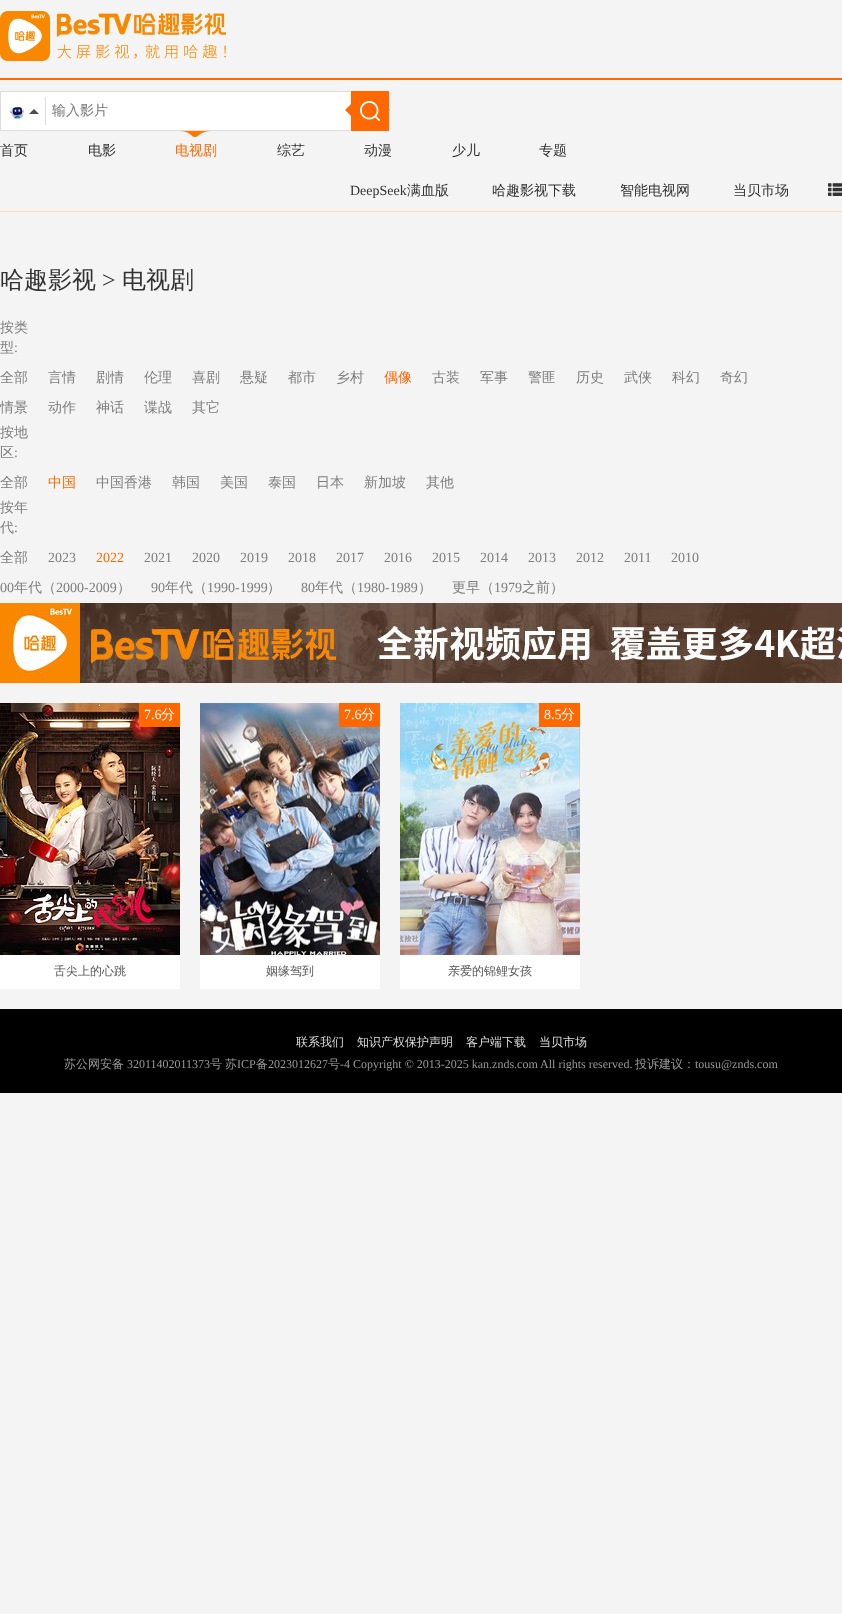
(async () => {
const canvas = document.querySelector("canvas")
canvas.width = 842
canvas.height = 1614
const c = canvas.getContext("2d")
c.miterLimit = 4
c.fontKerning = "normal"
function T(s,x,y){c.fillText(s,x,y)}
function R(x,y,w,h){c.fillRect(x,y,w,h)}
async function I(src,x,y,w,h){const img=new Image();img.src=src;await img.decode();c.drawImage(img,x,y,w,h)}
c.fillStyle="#f5f4f4"
R(0,0,842,1614)
c.fillStyle="#ff6700"
R(0,78,842,2)
await I("1.png",0,11,226,50)
c.fillStyle="#fff"
R(1,92,349,38)
c.fillStyle="#ddd"
R(0,91,350,1)
R(0,130,350,1)
R(0,91,1,40)
await I("2.png",29,109,10,5)
R(45,97,1,28)
await I("3.png",9,106,15,13)
c.save()
c.beginPath()
c.rect(52,102,296,18)
c.clip()
c.font="500 14px WenQuanYi Zen Hei"
c.fillStyle="#757575"
T("输入影片",52,115)
c.restore()
await I("4.png",345,91,45,40)
await I("5.png",360,101,20,20)
c.fillStyle="#fbdcbb"
R(0,211,842,1)
c.font="500 14px WenQuanYi Zen Hei"
c.fillStyle="#323232"
T("首页",0,155)
T("电影",88,155)
await I("6.png",180,131,31,6)
c.fillStyle="#ff6700"
T("电视剧",175,155)
c.fillStyle="#323232"
T("综艺",277,155)
T("动漫",364,155)
T("少儿",452,155)
T("专题",539,155)
c.font="14px Liberation Serif"
T("DeepSeek",350,195)
c.font="500 14px WenQuanYi Zen Hei"
T("满血版",407,195)
T("哈趣影视下载",492,195)
T("智能电视网",620,195)
T("当贝市场",733,195)
await I("7.png",828,183,14,13)
c.font="500 24px WenQuanYi Zen Hei"
T("哈趣影视",0,288)
c.font="24px Liberation Serif"
T(">",102,288)
c.font="500 24px WenQuanYi Zen Hei"
T("电视剧",122,288)
c.font="500 14px WenQuanYi Zen Hei"
c.fillStyle="#7e7e7e"
T("按类",0,332)
T("型",0,352)
c.font="14px Liberation Serif"
T(":",14,352)
c.font="500 14px WenQuanYi Zen Hei"
T("全部",0,382)
T("言情",48,382)
T("剧情",96,382)
T("伦理",144,382)
T("喜剧",192,382)
T("悬疑",240,382)
T("都市",288,382)
T("乡村",336,382)
c.fillStyle="#ff6700"
T("偶像",384,382)
c.fillStyle="#7e7e7e"
T("古装",432,382)
T("军事",480,382)
T("警匪",528,382)
T("历史",576,382)
T("武侠",624,382)
T("科幻",672,382)
T("奇幻",720,382)
T("情景",0,412)
T("动作",48,412)
T("神话",96,412)
T("谍战",144,412)
T("其它",192,412)
T("按地",0,437)
T("区",0,457)
c.font="14px Liberation Serif"
T(":",14,457)
c.font="500 14px WenQuanYi Zen Hei"
T("全部",0,487)
c.fillStyle="#ff6700"
T("中国",48,487)
c.fillStyle="#7e7e7e"
T("中国香港",96,487)
T("韩国",172,487)
T("美国",220,487)
T("泰国",268,487)
T("日本",316,487)
T("新加坡",364,487)
T("其他",426,487)
T("按年",0,512)
T("代",0,532)
c.font="14px Liberation Serif"
T(":",14,532)
c.font="500 14px WenQuanYi Zen Hei"
T("全部",0,562)
c.font="14px Liberation Serif"
T("2023",48,562)
c.fillStyle="#ff6700"
T("2022",96,562)
c.fillStyle="#7e7e7e"
T("2021",144,562)
T("2020",192,562)
T("2019",240,562)
T("2018",288,562)
T("2017",336,562)
T("2016",384,562)
T("2015",432,562)
T("2014",480,562)
T("2013",528,562)
T("2012",576,562)
T("2011",624,562)
T("2010",671,562)
T("00",0,592)
c.font="500 14px WenQuanYi Zen Hei"
T("年代（",14,592)
c.font="14px Liberation Serif"
T("2000-2009",56,592)
c.font="500 14px WenQuanYi Zen Hei"
T("）",117,592)
c.font="14px Liberation Serif"
T("90",151,592)
c.font="500 14px WenQuanYi Zen Hei"
T("年代（",165,592)
c.font="14px Liberation Serif"
T("1990-1999",207,592)
c.font="500 14px WenQuanYi Zen Hei"
T("）",267,592)
c.font="14px Liberation Serif"
T("80",301,592)
c.font="500 14px WenQuanYi Zen Hei"
T("年代（",315,592)
c.font="14px Liberation Serif"
T("1980-1989",357,592)
c.font="500 14px WenQuanYi Zen Hei"
T("）",418,592)
T("更早（",452,592)
c.font="14px Liberation Serif"
T("1979",494,592)
c.font="500 14px WenQuanYi Zen Hei"
T("之前）",522,592)
await I("8.png",0,603,842,80)
c.fillStyle="#fff"
R(0,955,180,34)
await I("9.png",0,703,180,252)
c.fillStyle="#ff6700"
R(139,703,41,24)
c.font="14px Liberation Serif"
c.fillStyle="#fff"
T("7.6",144,719)
c.font="500 14px WenQuanYi Zen Hei"
T("分",161,719)
c.font="500 12px WenQuanYi Zen Hei"
c.fillStyle="#555"
T("舌尖上的心跳",54,975)
c.fillStyle="#fff"
R(200,955,180,34)
await I("10.png",200,703,180,252)
c.fillStyle="#ff6700"
R(339,703,41,24)
c.font="14px Liberation Serif"
c.fillStyle="#fff"
T("7.6",344,719)
c.font="500 14px WenQuanYi Zen Hei"
T("分",361,719)
c.font="500 12px WenQuanYi Zen Hei"
c.fillStyle="#555"
T("姻缘驾到",266,975)
c.fillStyle="#fff"
R(400,955,180,34)
await I("11.png",400,703,180,252)
c.fillStyle="#ff6700"
R(539,703,41,24)
c.font="14px Liberation Serif"
c.fillStyle="#fff"
T("8.5",544,719)
c.font="500 14px WenQuanYi Zen Hei"
T("分",561,719)
c.font="500 12px WenQuanYi Zen Hei"
c.fillStyle="#555"
T("亲爱的锦鲤女孩",448,975)
c.fillStyle="#000"
R(0,1009,842,84)
c.fillStyle="#ddd"
T("联系我们",296,1046)
T("知识产权保护声明",357,1046)
T("客户端下载",466,1046)
T("当贝市场",539,1046)
c.fillStyle="#999"
T("苏公网安备",64,1068)
c.font="12px Liberation Serif"
T("32011402011373",127,1068)
c.font="500 12px WenQuanYi Zen Hei"
T("号",210,1068)
T("苏",225,1068)
c.font="12px Liberation Serif"
T("ICP",237,1068)
c.font="500 12px WenQuanYi Zen Hei"
T("备",256,1068)
c.font="12px Liberation Serif"
T("2023012627",268,1068)
c.font="500 12px WenQuanYi Zen Hei"
T("号",328,1068)
c.font="12px Liberation Serif"
T("-4 Copyright © 2013-2025 kan.znds.com All rights reserved.",340,1068)
c.font="500 12px WenQuanYi Zen Hei"
T("投诉建议：",635,1068)
c.font="12px Liberation Serif"
T("tousu@znds.com",695,1068)
})()
